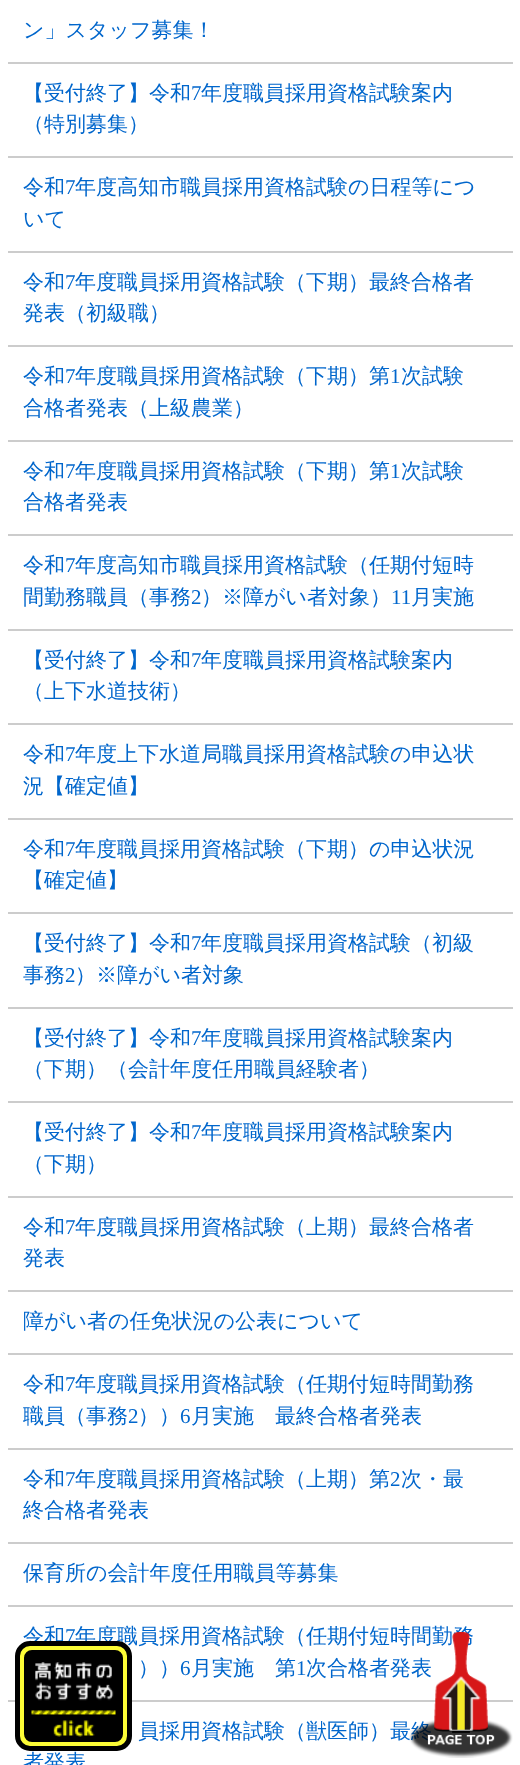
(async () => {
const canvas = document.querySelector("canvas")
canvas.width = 520
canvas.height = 1765
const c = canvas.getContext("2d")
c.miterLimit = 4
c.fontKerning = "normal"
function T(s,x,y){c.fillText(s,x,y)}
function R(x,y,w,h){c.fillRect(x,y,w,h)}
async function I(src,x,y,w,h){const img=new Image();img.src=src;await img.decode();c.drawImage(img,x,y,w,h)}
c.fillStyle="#fff"
R(0,0,520,1765)
c.fillStyle="#ccc"
R(8,62,505,2)
c.font="500 21px WenQuanYi Zen Hei"
c.fillStyle="#06c"
T("ン」スタッフ募集！",23,37)
c.fillStyle="#ccc"
R(8,156,505,2)
c.fillStyle="#06c"
T("【受付終了】令和",23,100)
c.font="21px Liberation Serif"
T("7",191,100)
c.font="500 21px WenQuanYi Zen Hei"
T("年度職員採用資格試験案内",201,100)
T("（特別募集）",23,131)
c.fillStyle="#ccc"
R(8,251,505,2)
c.fillStyle="#06c"
T("令和",23,194)
c.font="21px Liberation Serif"
T("7",65,194)
c.font="500 21px WenQuanYi Zen Hei"
T("年度高知市職員採用資格試験の日程等につ",75,194)
T("いて",23,226)
c.fillStyle="#ccc"
R(8,345,505,2)
c.fillStyle="#06c"
T("令和",23,289)
c.font="21px Liberation Serif"
T("7",65,289)
c.font="500 21px WenQuanYi Zen Hei"
T("年度職員採用資格試験（下期）最終合格者",75,289)
T("発表（初級職）",23,320)
c.fillStyle="#ccc"
R(8,440,505,2)
c.fillStyle="#06c"
T("令和",23,383)
c.font="21px Liberation Serif"
T("7",65,383)
c.font="500 21px WenQuanYi Zen Hei"
T("年度職員採用資格試験（下期）第",75,383)
c.font="21px Liberation Serif"
T("1",390,383)
c.font="500 21px WenQuanYi Zen Hei"
T("次試験",401,383)
T("合格者発表（上級農業）",23,415)
c.fillStyle="#ccc"
R(8,534,505,2)
c.fillStyle="#06c"
T("令和",23,478)
c.font="21px Liberation Serif"
T("7",65,478)
c.font="500 21px WenQuanYi Zen Hei"
T("年度職員採用資格試験（下期）第",75,478)
c.font="21px Liberation Serif"
T("1",390,478)
c.font="500 21px WenQuanYi Zen Hei"
T("次試験",401,478)
T("合格者発表",23,509)
c.fillStyle="#ccc"
R(8,629,505,2)
c.fillStyle="#06c"
T("令和",23,572)
c.font="21px Liberation Serif"
T("7",65,572)
c.font="500 21px WenQuanYi Zen Hei"
T("年度高知市職員採用資格試験（任期付短時",75,572)
T("間勤務職員（事務",23,604)
c.font="21px Liberation Serif"
T("2",191,604)
c.font="500 21px WenQuanYi Zen Hei"
T("）※障がい者対象）",201,604)
c.font="21px Liberation Serif"
T("11",391,604)
c.font="500 21px WenQuanYi Zen Hei"
T("月実施",411,604)
c.fillStyle="#ccc"
R(8,723,505,2)
c.fillStyle="#06c"
T("【受付終了】令和",23,667)
c.font="21px Liberation Serif"
T("7",191,667)
c.font="500 21px WenQuanYi Zen Hei"
T("年度職員採用資格試験案内",201,667)
T("（上下水道技術）",23,698)
c.fillStyle="#ccc"
R(8,818,505,2)
c.fillStyle="#06c"
T("令和",23,761)
c.font="21px Liberation Serif"
T("7",65,761)
c.font="500 21px WenQuanYi Zen Hei"
T("年度上下水道局職員採用資格試験の申込状",75,761)
T("況【確定値】",23,793)
c.fillStyle="#ccc"
R(8,912,505,2)
c.fillStyle="#06c"
T("令和",23,856)
c.font="21px Liberation Serif"
T("7",65,856)
c.font="500 21px WenQuanYi Zen Hei"
T("年度職員採用資格試験（下期）の申込状況",75,856)
T("【確定値】",23,887)
c.fillStyle="#ccc"
R(8,1007,505,2)
c.fillStyle="#06c"
T("【受付終了】令和",23,950)
c.font="21px Liberation Serif"
T("7",191,950)
c.font="500 21px WenQuanYi Zen Hei"
T("年度職員採用資格試験（初級",201,950)
T("事務",23,982)
c.font="21px Liberation Serif"
T("2",65,982)
c.font="500 21px WenQuanYi Zen Hei"
T("）※障がい者対象",75,982)
c.fillStyle="#ccc"
R(8,1101,505,2)
c.fillStyle="#06c"
T("【受付終了】令和",23,1045)
c.font="21px Liberation Serif"
T("7",191,1045)
c.font="500 21px WenQuanYi Zen Hei"
T("年度職員採用資格試験案内",201,1045)
T("（下期）（会計年度任用職員経験者）",23,1076)
c.fillStyle="#ccc"
R(8,1196,505,2)
c.fillStyle="#06c"
T("【受付終了】令和",23,1139)
c.font="21px Liberation Serif"
T("7",191,1139)
c.font="500 21px WenQuanYi Zen Hei"
T("年度職員採用資格試験案内",201,1139)
T("（下期）",23,1171)
c.fillStyle="#ccc"
R(8,1290,505,2)
c.fillStyle="#06c"
T("令和",23,1234)
c.font="21px Liberation Serif"
T("7",65,1234)
c.font="500 21px WenQuanYi Zen Hei"
T("年度職員採用資格試験（上期）最終合格者",75,1234)
T("発表",23,1265)
c.fillStyle="#ccc"
R(8,1353,505,2)
c.fillStyle="#06c"
T("障がい者の任免状況の公表について",23,1328)
c.fillStyle="#ccc"
R(8,1448,505,2)
c.fillStyle="#06c"
T("令和",23,1391)
c.font="21px Liberation Serif"
T("7",65,1391)
c.font="500 21px WenQuanYi Zen Hei"
T("年度職員採用資格試験（任期付短時間勤務",75,1391)
T("職員（事務",23,1423)
c.font="21px Liberation Serif"
T("2",128,1423)
c.font="500 21px WenQuanYi Zen Hei"
T("））",138,1423)
c.font="21px Liberation Serif"
T("6",180,1423)
c.font="500 21px WenQuanYi Zen Hei"
T("月実施　最終合格者発表",191,1423)
c.fillStyle="#ccc"
R(8,1542,505,2)
c.fillStyle="#06c"
T("令和",23,1486)
c.font="21px Liberation Serif"
T("7",65,1486)
c.font="500 21px WenQuanYi Zen Hei"
T("年度職員採用資格試験（上期）第",75,1486)
c.font="21px Liberation Serif"
T("2",390,1486)
c.font="500 21px WenQuanYi Zen Hei"
T("次・最",401,1486)
T("終合格者発表",23,1517)
c.fillStyle="#ccc"
R(8,1605,505,2)
c.fillStyle="#06c"
T("保育所の会計年度任用職員等募集",23,1580)
c.fillStyle="#ccc"
R(8,1700,505,2)
c.fillStyle="#06c"
T("令和",23,1643)
c.font="21px Liberation Serif"
T("7",65,1643)
c.font="500 21px WenQuanYi Zen Hei"
T("年度職員採用資格試験（任期付短時間勤務",75,1643)
T("））",138,1675)
c.font="21px Liberation Serif"
T("6",180,1675)
c.font="500 21px WenQuanYi Zen Hei"
T("月実施　第",191,1675)
c.font="21px Liberation Serif"
T("1",296,1675)
c.font="500 21px WenQuanYi Zen Hei"
T("次合格者発表",306,1675)
T("員採用資格試験（獣医師）最終",138,1738)
T("者発表",23,1769)
c.fillStyle="#fcfc36"
c.beginPath()
c.roundRect(17.5,1643.5,112,105,12.5)
c.fill()
c.strokeStyle="#000"
c.lineWidth=5
c.stroke()
c.fillStyle="#000"
c.beginPath()
c.roundRect(26.5,1652.5,94,87,5.5)
c.fill()
c.stroke()
await I("1.png",53,1720,42,17)
await I("2.png",31,1662,85,53)
await I("3.png",409,1632,104,126)
})()
